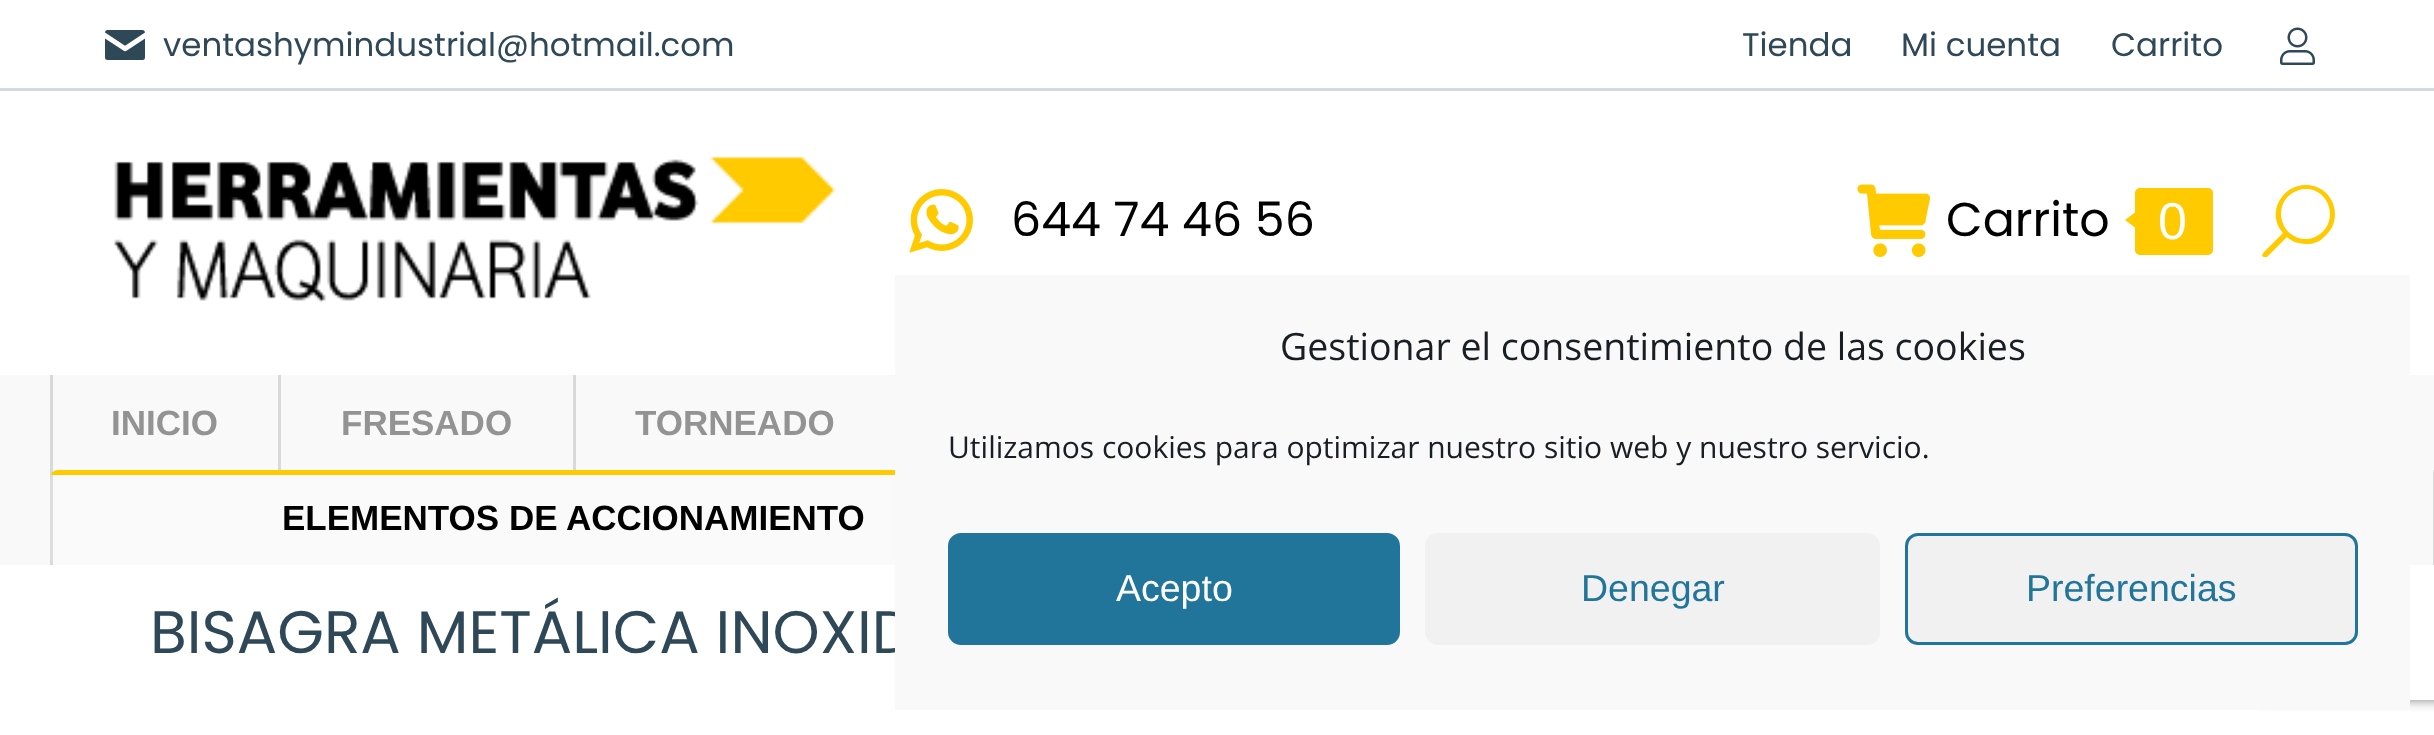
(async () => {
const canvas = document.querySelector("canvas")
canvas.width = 2434
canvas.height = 735
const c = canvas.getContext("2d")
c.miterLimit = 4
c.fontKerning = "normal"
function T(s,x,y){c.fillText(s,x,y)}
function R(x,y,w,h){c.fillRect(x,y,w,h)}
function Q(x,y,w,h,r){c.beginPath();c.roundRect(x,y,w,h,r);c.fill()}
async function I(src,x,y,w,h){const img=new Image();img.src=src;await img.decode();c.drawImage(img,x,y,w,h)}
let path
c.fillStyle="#fff"
R(0,0,2434,735)
await I("1.png",105,30,40,30)
c.font="32.5px Poppins"
c.fillStyle="#2f4858"
T("ventashymindustrial@hotmail.com",163,56)
T("Tienda",1742,56)
T("Mi cuenta",1901,56)
T("Carrito",2111,56)
await I("2.png",2280,27,35,38)
c.fillStyle="#d5dade"
R(0,88,2434,3)
await I("3.png",114,156,722,147)
await I("4.png",909,189,64,64)
c.font="47.5px Poppins"
c.fillStyle="#000"
T("644 74 46 56",1011,236)
await I("5.png",1857,184,73,73)
T("Carrito",1946,236)
c.fillStyle="#ffca00"
Q(2135,188,78,67,5)
path = new Path2D("M2135 212.5v15l-10-7.5z")
c.fill(path)
c.font="52px Liberation Sans"
c.fillStyle="#fff"
T("0",2158,239)
c.fillStyle="#ffca00"
path = new Path2D("M2306 185c-25 0-40 29-23 48l-13 13c-5 5-11 10-6 11h3l20-20c5 5 13 7 20 7c6 0 12-2 16-6c23-17 11-53-17-53zm0 54c-24 0-34-31-15-45c4-3 9-5 15-5c23 0 33 31 14 45c-4 3-9 5-14 5z")
c.fill(path)
c.save()
c.beginPath()
c.rect(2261,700,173,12)
c.clip()
c.fillStyle="#808080"
c.filter="blur(6px)"
c.beginPath()
c.roundRect(2260,550,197,150,5)
c.fill()
c.filter="none"
c.restore()
c.fillStyle="#f9f9f9"
R(0,375,2434,190)
c.fillStyle="#d9d9d9"
R(50,375,3,190)
c.font="bold 35px Liberation Sans"
c.fillStyle="#939393"
T("INICIO",111,435)
c.fillStyle="#d9d9d9"
R(278,375,3,95)
c.fillStyle="#939393"
T("FRESADO",341,435)
c.fillStyle="#d9d9d9"
R(573,375,3,95)
c.fillStyle="#939393"
T("TORNEADO",635,435)
c.fillStyle="#ffffff26"
Q(50,470,1045,95,8)
c.save()
c.beginPath()
c.roundRect(50,470,1045,95,8)
c.clip()
c.fillStyle="#ffca00"
Q(50,470,1045,5,2.5)
c.restore()
c.fillStyle="#000"
T("ELEMENTOS DE ACCIONAMIENTO",282,530)
c.fillStyle="#d9d9d9"
R(2433,470,1,95)
c.font="60px Poppins"
c.fillStyle="#2f4858"
T("BISAGRA METÁLICA INOXID",150,653)
c.fillStyle="#f9f9f9"
R(895,275,1515,435)
c.font="37.5px Open Sans"
c.fillStyle="#191e23"
T("Gestionar el consentimiento de las cookies",1280,360)
c.font="30px Open Sans"
T("Utilizamos cookies para optimizar nuestro sitio web y nuestro servicio.",948,458)
c.fillStyle="#21759b"
c.beginPath()
c.roundRect(949.5,534.5,449,109,11.5)
c.fill()
c.strokeStyle="#21759b"
c.lineWidth=3
c.stroke()
c.font="37.5px Liberation Sans"
c.fillStyle="#fff"
T("Acepto",1116,601)
c.fillStyle="#f1f1f1"
Q(1425,533,455,112,13)
c.fillStyle="#21759b"
T("Denegar",1581,601)
c.fillStyle="#f1f1f1"
c.beginPath()
c.roundRect(1906.5,534.5,450,109,11.5)
c.fill()
c.stroke()
c.fillStyle="#21759b"
T("Preferencias",2026,601)
})()
